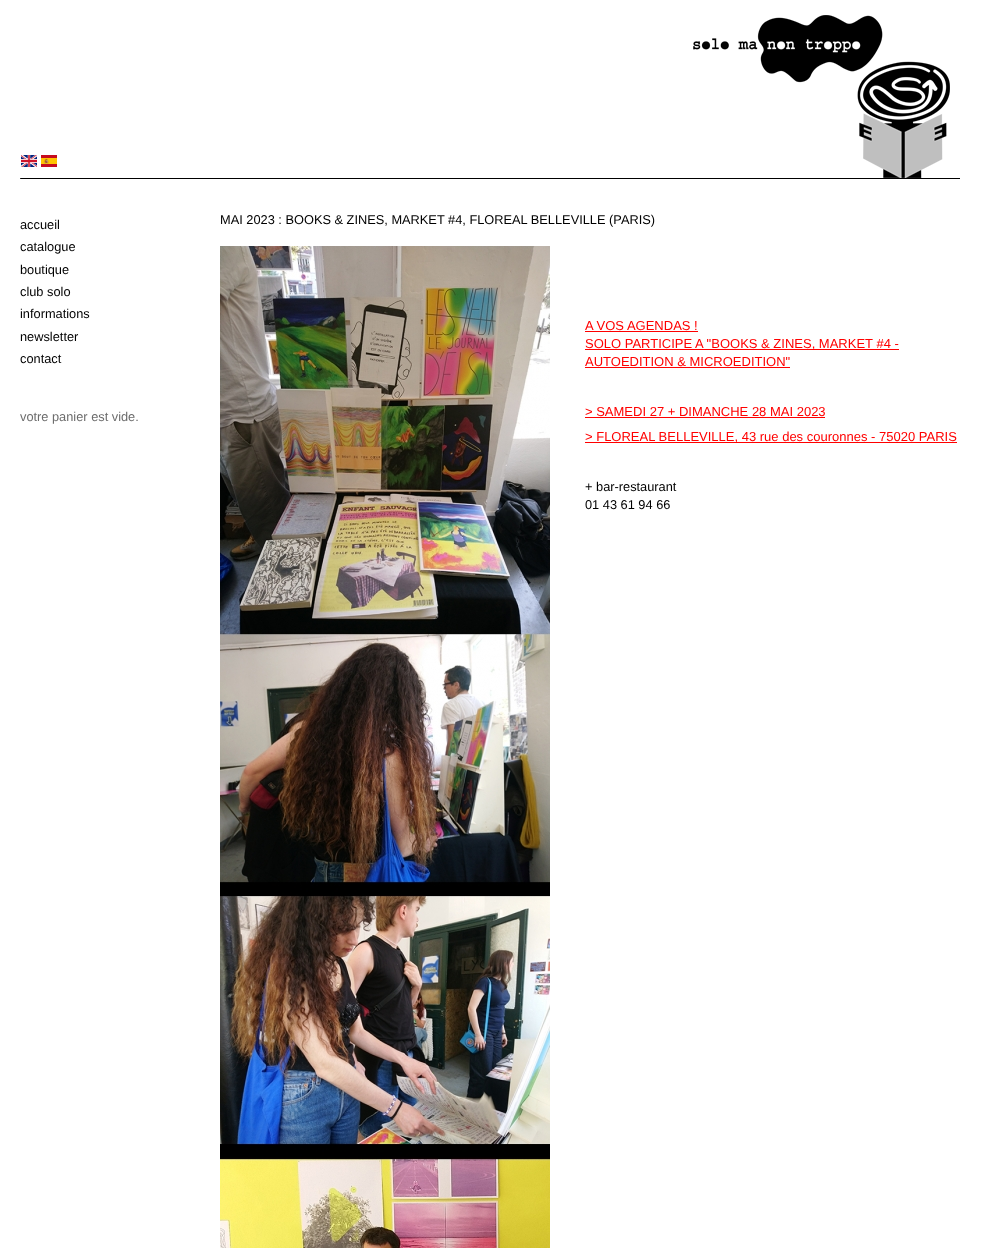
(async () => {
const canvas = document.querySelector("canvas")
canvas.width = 1000
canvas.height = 1248
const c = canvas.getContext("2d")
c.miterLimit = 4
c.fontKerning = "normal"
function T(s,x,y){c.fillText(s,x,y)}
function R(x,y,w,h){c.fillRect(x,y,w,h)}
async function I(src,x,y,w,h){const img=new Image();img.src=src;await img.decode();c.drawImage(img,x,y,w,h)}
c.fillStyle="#fff"
R(0,0,1000,1248)
await I("1.png",20,15,940,164)
await I("2.png",21,155,16,12)
await I("3.png",41,155,16,12)
c.font="12.8px Liberation Sans"
c.fillStyle="#000"
T("accueil",20,229)
T("catalogue",20,251)
T("boutique",20,274)
T("club solo",20,296)
T("informations",20,318)
T("newsletter",20,341)
T("contact",20,363)
c.fillStyle="#6c6c6c"
T("votre panier est vide.",20,421)
c.fillStyle="#000"
T("MAI 2023 : BOOKS & ZINES, MARKET #4, FLOREAL BELLEVILLE (PARIS)",220,224)
await I("4.png",220,246,330,1002)
c.font="13px Liberation Sans"
c.fillStyle="#f00"
T("A VOS AGENDAS !",585,330)
R(585,331,113,1)
R(585,349,314,1)
T("SOLO PARTICIPE A \"BOOKS & ZINES, MARKET #4 -",585,348)
T("AUTOEDITION & MICROEDITION\"",585,366)
R(585,367,205,1)
T("> SAMEDI 27 + DIMANCHE 28 MAI 2023",585,416)
R(585,417,240,1)
R(585,442,372,1)
T("> FLOREAL BELLEVILLE, 43 rue des couronnes - 75020 PARIS",585,441)
c.font="12.8px Liberation Sans"
c.fillStyle="#000"
T("+ bar-restaurant",585,491)
T("01 43 61 94 66",585,509)
})()
